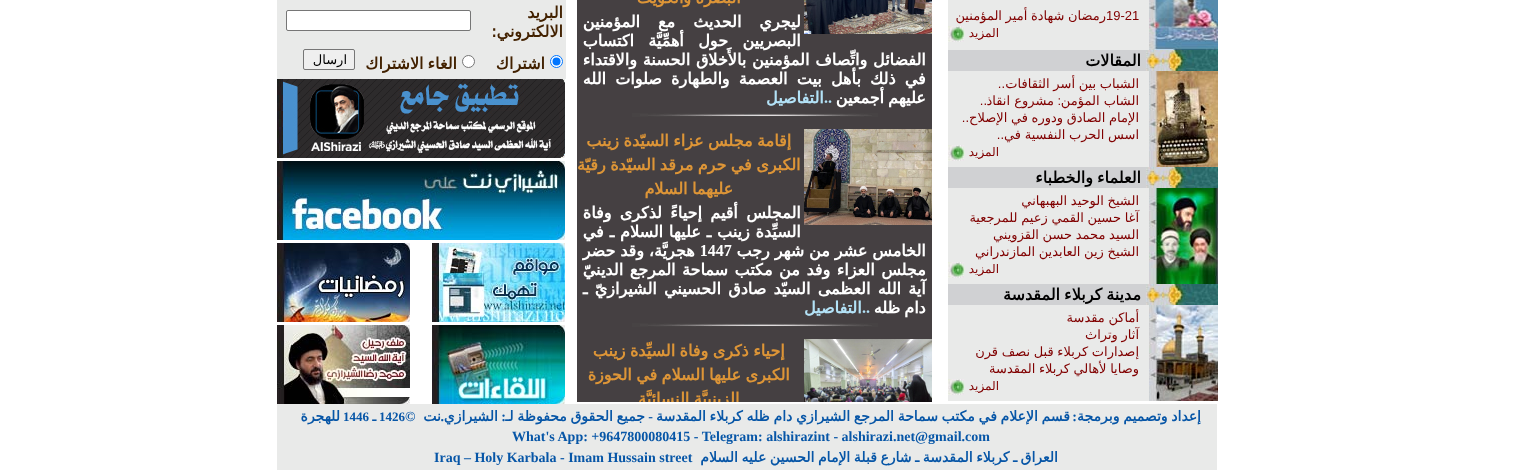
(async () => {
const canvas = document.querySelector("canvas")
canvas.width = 1517
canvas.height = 470
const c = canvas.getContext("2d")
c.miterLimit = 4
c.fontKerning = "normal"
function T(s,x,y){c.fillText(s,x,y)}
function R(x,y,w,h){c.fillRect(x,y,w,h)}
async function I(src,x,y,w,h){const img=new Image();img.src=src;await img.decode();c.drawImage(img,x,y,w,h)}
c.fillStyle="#fff"
R(0,0,1517,470)
await I("1.png",1149,0,69,50)
c.fillStyle="#e9eae9"
R(948,0,201,50)
c.font="13px Liberation Sans"
c.fillStyle="#800000"
T("19-21",1106,20)
c.wordSpacing="-0.5px"
c.direction="rtl"
c.font="13px DejaVu Sans"
T("رمضان شهادة أمير المؤمنين",1106,20)
c.wordSpacing="0px"
c.font="12px DejaVu Sans"
T("المزيد",999,37)
await I("2.png",948,26,17,16)
await I("3.png",1146,50,72,21)
c.fillStyle="#d0d1d3"
R(948,50,198,21)
c.font="bold 16px DejaVu Sans"
c.fillStyle="#000"
T("المقالات",1141,66)
await I("4.png",1149,71,69,96)
c.fillStyle="#e9eae9"
R(948,71,201,96)
c.wordSpacing="-0.5px"
c.font="13px DejaVu Sans"
c.fillStyle="#800000"
T("الشباب بين أسر الثقافات",1139,88)
c.wordSpacing="0px"
c.font="13px Liberation Sans"
T("..",1005,88)
c.font="13px DejaVu Sans"
T("الشاب المؤمن",1139,105)
c.font="13px Liberation Sans"
T(":",1061,105)
c.font="13px DejaVu Sans"
T("مشروع انقاذ",1054,105)
c.font="13px Liberation Sans"
T("..",987,105)
c.wordSpacing="-0.5px"
c.font="13px DejaVu Sans"
T("الإمام الصادق ودوره في الإصلاح",1139,122)
c.wordSpacing="0px"
c.font="13px Liberation Sans"
T("..",969,122)
c.wordSpacing="-0.5px"
c.font="13px DejaVu Sans"
T("اسس الحرب النفسية في",1139,139)
c.wordSpacing="0px"
c.font="13px Liberation Sans"
T("..",1004,139)
c.font="12px DejaVu Sans"
T("المزيد",999,156)
await I("2.png",948,145,17,16)
await I("3.png",1146,167,72,21)
c.fillStyle="#d0d1d3"
R(948,167,198,21)
c.wordSpacing="-1px"
c.font="bold 16px DejaVu Sans"
c.fillStyle="#000"
T("العلماء والخطباء",1141,183)
await I("5.png",1149,188,69,96)
c.fillStyle="#e9eae9"
R(948,188,201,96)
c.wordSpacing="-0.5px"
c.font="13px DejaVu Sans"
c.fillStyle="#800000"
T("الشيخ الوحيد البهبهاني",1139,205)
T("آغا حسين القمي زعيم للمرجعية",1139,222)
T("السيد محمد حسن القزويني",1139,239)
T("الشيخ زين العابدين المازندراني",1139,256)
c.wordSpacing="0px"
c.font="12px DejaVu Sans"
T("المزيد",999,273)
await I("2.png",948,262,17,16)
await I("3.png",1146,284,72,21)
c.fillStyle="#d0d1d3"
R(948,284,198,21)
c.wordSpacing="-1px"
c.font="bold 16px DejaVu Sans"
c.fillStyle="#000"
T("مدينة كربلاء المقدسة",1141,300)
await I("6.png",1149,305,69,96)
c.fillStyle="#e9eae9"
R(948,305,201,96)
c.wordSpacing="-0.5px"
c.font="13px DejaVu Sans"
c.fillStyle="#800000"
T("أماكن مقدسة",1139,322)
T("آثار وتراث",1139,339)
T("إصدارات كربلاء قبل نصف قرن",1139,356)
T("وصايا لأهالي كربلاء المقدسة",1139,373)
c.wordSpacing="0px"
c.font="12px DejaVu Sans"
T("المزيد",999,390)
await I("2.png",948,379,17,16)
await I("7.png",577,0,355,402)
c.fillStyle="#e9eae9"
R(277,0,289,79)
c.font="bold 16px DejaVu Sans"
c.fillStyle="#422100"
T("البريد",563,18)
T("الالكتروني:",563,37)
c.fillStyle="#fff"
c.beginPath()
c.roundRect(286.5,10.5,184,20,1.5)
c.fill()
c.strokeStyle="#767676"
c.stroke()
c.beginPath()
c.arc(556.5,61.5,6,0,7)
c.fill()
c.strokeStyle="#0075ff"
c.stroke()
c.fillStyle="#0075ff"
c.beginPath()
c.arc(556.5,61.5,4,0,7)
c.fill()
c.fillStyle="#422100"
T("اشتراك",545,69)
c.fillStyle="#fff"
c.beginPath()
c.arc(468.5,61.5,6,0,7)
c.fill()
c.strokeStyle="#767676"
c.stroke()
c.wordSpacing="-1px"
c.fillStyle="#422100"
T("الغاء الاشتراك",457,69)
c.fillStyle="#efefef"
c.beginPath()
c.roundRect(303.5,49.5,51,20,1.5)
c.fill()
c.stroke()
c.wordSpacing="0px"
c.font="13px DejaVu Sans"
c.fillStyle="#000"
T("ارسال",347,64)
await I("8.png",277,79,288,79)
await I("9.png",277,161,288,79)
await I("10.png",432,243,133,79)
await I("11.png",277,243,133,79)
await I("12.png",432,325,133,79)
await I("13.png",277,325,133,79)
c.fillStyle="#e9eae9"
R(277,404,940,66)
c.wordSpacing="-0.75px"
c.font="bold 14px DejaVu Sans"
c.fillStyle="#0756a7"
T("إعداد وتصميم وبرمجة",1201,421)
c.wordSpacing="0px"
c.font="bold 14px Liberation Serif"
T(":",1077,421)
c.wordSpacing="-0.75px"
c.font="bold 14px DejaVu Sans"
T("قسم الإعلام في مكتب سماحة المرجع الشيرازي دام ظله كربلاء المقدسة",1070,421)
c.wordSpacing="0px"
c.font="bold 14px Liberation Serif"
T("-",653,421)
c.wordSpacing="-0.75px"
c.font="bold 14px DejaVu Sans"
T("جميع الحقوق محفوظة لـ",645,421)
c.wordSpacing="0px"
c.font="bold 14px Liberation Serif"
T(":",506,421)
c.font="bold 14px DejaVu Sans"
T("الشيرازي",498,421)
c.font="bold 14px Liberation Serif"
T(".",444,421)
c.font="bold 14px DejaVu Sans"
T("نت",441,421)
c.direction="ltr"
c.font="bold 14px Liberation Serif"
T("©",405,421)
c.font="bold 13px Liberation Serif"
T("1426",379,421)
c.direction="rtl"
c.font="bold 13px DejaVu Sans"
T("ـ",376,421)
c.direction="ltr"
c.font="bold 13px Liberation Serif"
T("1446",343,421)
c.direction="rtl"
c.font="bold 14px DejaVu Sans"
T("للهجرة",340,421)
c.direction="ltr"
c.font="bold 14px Liberation Serif"
T("What's App: +9647800080415 - Telegram: alshirazint - alshirazi.net@gmail.com",512,441)
c.wordSpacing="-0.9px"
c.direction="rtl"
c.font="bold 14px DejaVu Sans"
T("العراق ـ كربلاء المقدسة ـ شارع قبلة الإمام الحسين عليه السلام",1058,462)
c.wordSpacing="0px"
c.direction="ltr"
c.font="bold 14px Liberation Serif"
T("Iraq – Holy Karbala - Imam Hussain street",434,462)
})()
